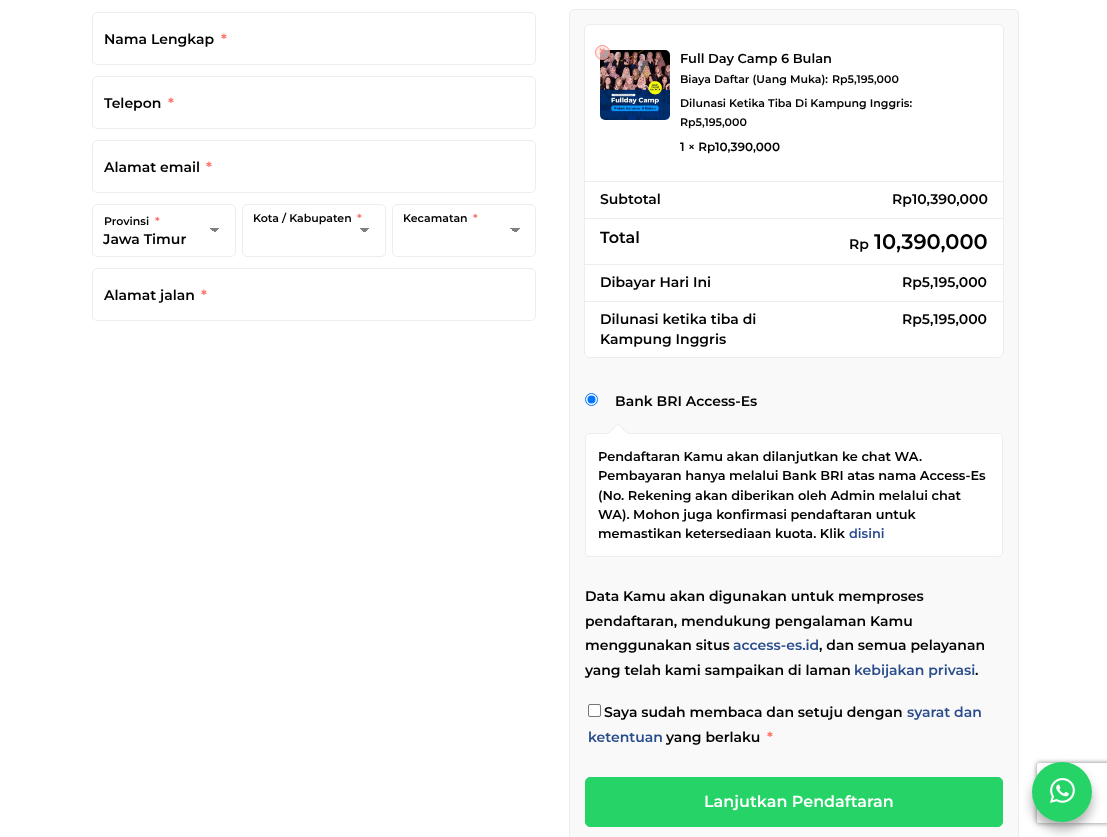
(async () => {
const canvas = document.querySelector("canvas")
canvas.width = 1107
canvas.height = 837
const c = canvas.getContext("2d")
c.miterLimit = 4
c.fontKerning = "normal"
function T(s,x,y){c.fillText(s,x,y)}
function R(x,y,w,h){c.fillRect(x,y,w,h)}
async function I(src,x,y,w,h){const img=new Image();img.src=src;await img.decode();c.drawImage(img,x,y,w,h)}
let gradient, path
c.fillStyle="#fff"
R(0,0,1107,837)
c.beginPath()
c.roundRect(92.5,12.5,443,52,4.5)
c.strokeStyle="#ededed"
c.stroke()
c.font="600 14px Montserrat"
c.fillStyle="#000"
T("Nama Lengkap",104,44)
c.fillStyle="#ff6c5f"
T("*",221,44)
c.beginPath()
c.roundRect(92.5,76.5,443,52,4.5)
c.stroke()
c.fillStyle="#000"
T("Telepon",104,108)
c.fillStyle="#ff6c5f"
T("*",168,108)
c.beginPath()
c.roundRect(92.5,140.5,443,52,4.5)
c.stroke()
c.fillStyle="#000"
T("Alamat email",104,172)
c.fillStyle="#ff6c5f"
T("*",206,172)
gradient = c.createLinearGradient(215,228,220,233)
gradient.addColorStop(.5,"#808080")
gradient.addColorStop(.5,"#fff")
c.fillStyle = gradient
R(215,228,5,4)
gradient = c.createLinearGradient(210,233,215,228)
gradient.addColorStop(.5,"#fff")
gradient.addColorStop(.5,"#808080")
c.fillStyle = gradient
R(210,228,5,4)
c.beginPath()
c.roundRect(92.5,204.5,143,52,4.5)
c.stroke()
c.font="600 11px Montserrat"
c.fillStyle="#000"
T("Provinsi",104,225)
c.fillStyle="#ff6c5f"
T("*",155,225)
c.font="600 14px Montserrat"
c.fillStyle="#000"
T("Jawa Timur",103,244)
gradient = c.createLinearGradient(365,228,370,233)
gradient.addColorStop(.5,"#808080")
gradient.addColorStop(.5,"#fff")
c.fillStyle = gradient
R(365,228,5,4)
gradient = c.createLinearGradient(360,233,365,228)
gradient.addColorStop(.5,"#fff")
gradient.addColorStop(.5,"#808080")
c.fillStyle = gradient
R(360,228,5,4)
c.beginPath()
c.roundRect(242.5,204.5,143,52,4.5)
c.stroke()
c.font="600 11px Montserrat"
c.fillStyle="#000"
T("Kota / Kabupaten",253,222)
c.fillStyle="#ff6c5f"
T("*",357,222)
gradient = c.createLinearGradient(515,228,520,233)
gradient.addColorStop(.5,"#808080")
gradient.addColorStop(.5,"#fff")
c.fillStyle = gradient
R(515,228,5,4)
gradient = c.createLinearGradient(510,233,515,228)
gradient.addColorStop(.5,"#fff")
gradient.addColorStop(.5,"#808080")
c.fillStyle = gradient
R(510,228,5,4)
c.beginPath()
c.roundRect(392.5,204.5,143,52,4.5)
c.stroke()
c.fillStyle="#000"
T("Kecamatan",403,222)
c.fillStyle="#ff6c5f"
T("*",473,222)
c.beginPath()
c.roundRect(92.5,268.5,443,52,4.5)
c.stroke()
c.font="600 14px Montserrat"
c.fillStyle="#000"
T("Alamat jalan",104,300)
c.fillStyle="#ff6c5f"
T("*",201,300)
c.fillStyle="#f9f9f9"
c.beginPath()
c.roundRect(569.5,9.5,449,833,4.5)
c.fill()
c.stroke()
c.beginPath()
c.roundRect(584.5,24.5,419,158,[5.5,5.5,0,0])
c.stroke()
c.fillStyle="#fff"
c.beginPath()
c.roundRect(585,25,418,157,[5,5,0,0])
c.fill()
await I("1.png",600,50,70,70)
c.fillStyle="#ffe1dfb3"
c.beginPath()
c.arc(602.5,52.5,7.5,0,7)
c.fill()
c.beginPath()
c.arc(602.5,52.5,7,0,7)
c.strokeStyle="#ff6c5fb3"
c.stroke()
c.fillStyle="#f68980"
T("×",598,56)
c.font="600 13px Montserrat"
c.fillStyle="#000"
T("Full Day Camp 6 Bulan",680,63)
c.font="600 11px Montserrat"
T("Biaya Daftar (Uang Muka):",680,83)
T("Rp5,195,000",832,83)
T("Dilunasi Ketika Tiba Di Kampung Inggris:",680,107)
T("Rp5,195,000",680,126)
c.font="600 12px Montserrat"
T("1 × Rp10,390,000",680,151)
c.fillStyle="#fff"
R(585,182,418,175)
c.beginPath()
c.roundRect(584.5,181.5,419,176,[0,0,5.5,5.5])
c.strokeStyle="#ededed"
c.stroke()
c.font="600 14px Montserrat"
c.fillStyle="#000"
T("Subtotal",600,204)
c.fillStyle="#ededed"
R(585,218,418,1)
c.fillStyle="#000"
T("Rp",892,204)
T("10,390,000",912,204)
c.font="600 16px Montserrat"
T("Total",600,243)
c.fillStyle="#ededed"
R(585,264,418,1)
c.font="600 14px Montserrat"
c.fillStyle="#000"
T("Rp",849,249)
c.font="600 21px Montserrat"
T("10,390,000",874,249)
c.font="600 14px Montserrat"
T("Dibayar Hari Ini",600,287)
c.fillStyle="#ededed"
R(585,301,418,1)
c.fillStyle="#000"
T("Rp5,195,000",902,287)
T("Dilunasi ketika tiba di",600,324)
T("Kampung Inggris",600,344)
T("Rp5,195,000",902,324)
c.fillStyle="#fff"
c.beginPath()
c.arc(591.5,399.5,6,0,7)
c.fill()
c.strokeStyle="#0075ff"
c.stroke()
c.fillStyle="#0075ff"
c.beginPath()
c.arc(591.5,399.5,4,0,7)
c.fill()
c.fillStyle="#000"
T("Bank BRI Access-Es",615,406)
c.fillStyle="#fff"
c.beginPath()
c.roundRect(585.5,433.5,417,123,4.5)
c.fill()
c.strokeStyle="#ededed"
c.stroke()
path = new Path2D("M618 423l10.5 10.5l-10.5 10.5l-10.5-10.5z")
c.fill(path)
c.fillStyle="#ededed"
path = new Path2D("M618 423l10.5 10.5h-1.5l-9-9zm-10.5 10.5l10.5-10.5v1.5l-9 9z")
c.fill(path)
c.font="600 12.9px Montserrat"
c.fillStyle="#000"
T("Pendaftaran Kamu akan dilanjutkan ke chat WA.",598,461)
T("Pembayaran hanya melalui Bank BRI atas nama Access-Es",598,480)
T("(No. Rekening akan diberikan oleh Admin melalui chat",598,500)
T("WA). Mohon juga konfirmasi pendaftaran untuk",598,519)
T("memastikan ketersediaan kuota. Klik",598,538)
c.fillStyle="#294c8c"
T("disini",849,538)
c.font="600 14px Montserrat"
c.fillStyle="#000"
T("Data Kamu akan digunakan untuk memproses",585,601)
T("pendaftaran, mendukung pengalaman Kamu",585,626)
T("menggunakan situs",585,650)
c.fillStyle="#294c8c"
T("access-es.id",733,650)
c.fillStyle="#000"
T(", dan semua pelayanan",819,650)
T("yang telah kami sampaikan di laman",585,675)
c.fillStyle="#294c8c"
T("kebijakan privasi",854,675)
c.fillStyle="#000"
T(".",975,675)
c.fillStyle="#fff"
c.beginPath()
c.roundRect(588.5,704.5,12,12,1.5)
c.fill()
c.strokeStyle="#767676"
c.stroke()
c.fillStyle="#000"
T("Saya sudah membaca dan setuju dengan",604,717)
c.fillStyle="#294c8c"
T("syarat dan",907,717)
T("ketentuan",588,742)
c.fillStyle="#000"
T("yang berlaku",666,742)
c.fillStyle="#ff6c5f"
T("*",767,742)
c.fillStyle="#25d366"
c.beginPath()
c.roundRect(585.5,777.5,417,49,4.5)
c.fill()
c.strokeStyle="#25d366"
c.stroke()
c.font="600 16px Montserrat"
c.fillStyle="#fff"
T("Lanjutkan Pendaftaran",704,807)
c.fillStyle="#0000004d"
c.filter="blur(5.5px)"
c.beginPath()
c.roundRect(1032,770,60,60,30)
c.fill()
c.filter="none"
c.save()
path = new Path2D("M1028 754h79v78h-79zm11 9h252c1 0 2 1 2 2v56c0 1-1 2-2 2h-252c-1 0-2-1-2-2v-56c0-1 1-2 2-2z")
c.clip(path,"evenodd")
c.fillStyle="#808080"
c.filter="blur(2.5px)"
c.beginPath()
c.roundRect(1037,763,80,60,2)
c.fill()
c.filter="none"
c.restore()
c.fillStyle="#25d366"
c.beginPath()
c.arc(1062,792,30,0,7)
c.fill()
await I("2.png",1050,778,25,25)
})()
